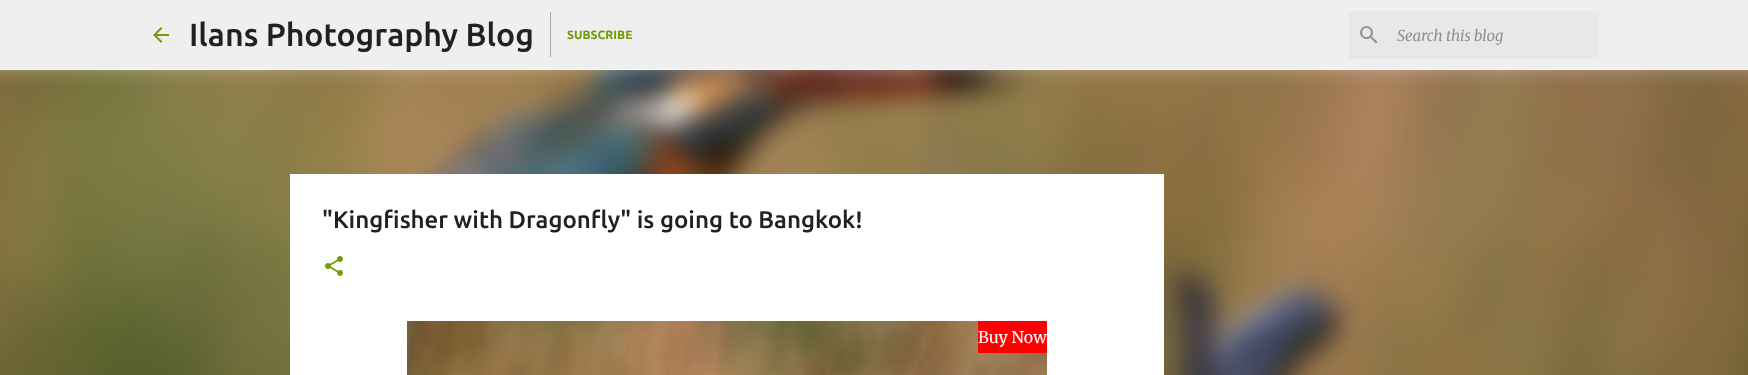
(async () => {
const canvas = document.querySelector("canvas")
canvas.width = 1748
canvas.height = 375
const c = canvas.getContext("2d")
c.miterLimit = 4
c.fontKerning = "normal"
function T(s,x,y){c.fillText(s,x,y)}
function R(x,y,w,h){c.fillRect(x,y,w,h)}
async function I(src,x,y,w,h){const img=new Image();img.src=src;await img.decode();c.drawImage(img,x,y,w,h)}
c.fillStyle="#f7f7f7"
R(0,0,1748,375)
c.fillStyle="#efefef"
R(0,0,1748,69)
await I("1.png",153,27,16,16)
c.font="500 32px Ubuntu"
c.fillStyle="#212121"
T("Ilans Photography Blog",189,46)
c.fillStyle="#a7a7a7"
R(550,12,1,45)
c.font="bold 12px Ubuntu"
c.fillStyle="#729c0b"
T("SUBSCRIBE",567,39)
c.fillStyle="#e8e8e8"
R(1349,11,250,48)
await I("2.png",1360,26,18,18)
c.font="italic 300 15px Merriweather"
c.fillStyle="#909090"
T("Search this blog",1397,41)
await I("5.png",0,70,1748,305)
c.fillStyle="#fff"
R(290,174,874,201)
c.font="500 24px Ubuntu"
c.fillStyle="#212121"
T("\"Kingfisher with Dragonfly\" is going to Bangkok!",322,228)
await I("3.png",325,256,18,20)
await I("4.png",407,321,640,54)
c.fillStyle="#f00"
R(978,321,69,32)
c.font="300 16px Merriweather"
c.fillStyle="#fff"
T("Buy Now",978,343)
})()
